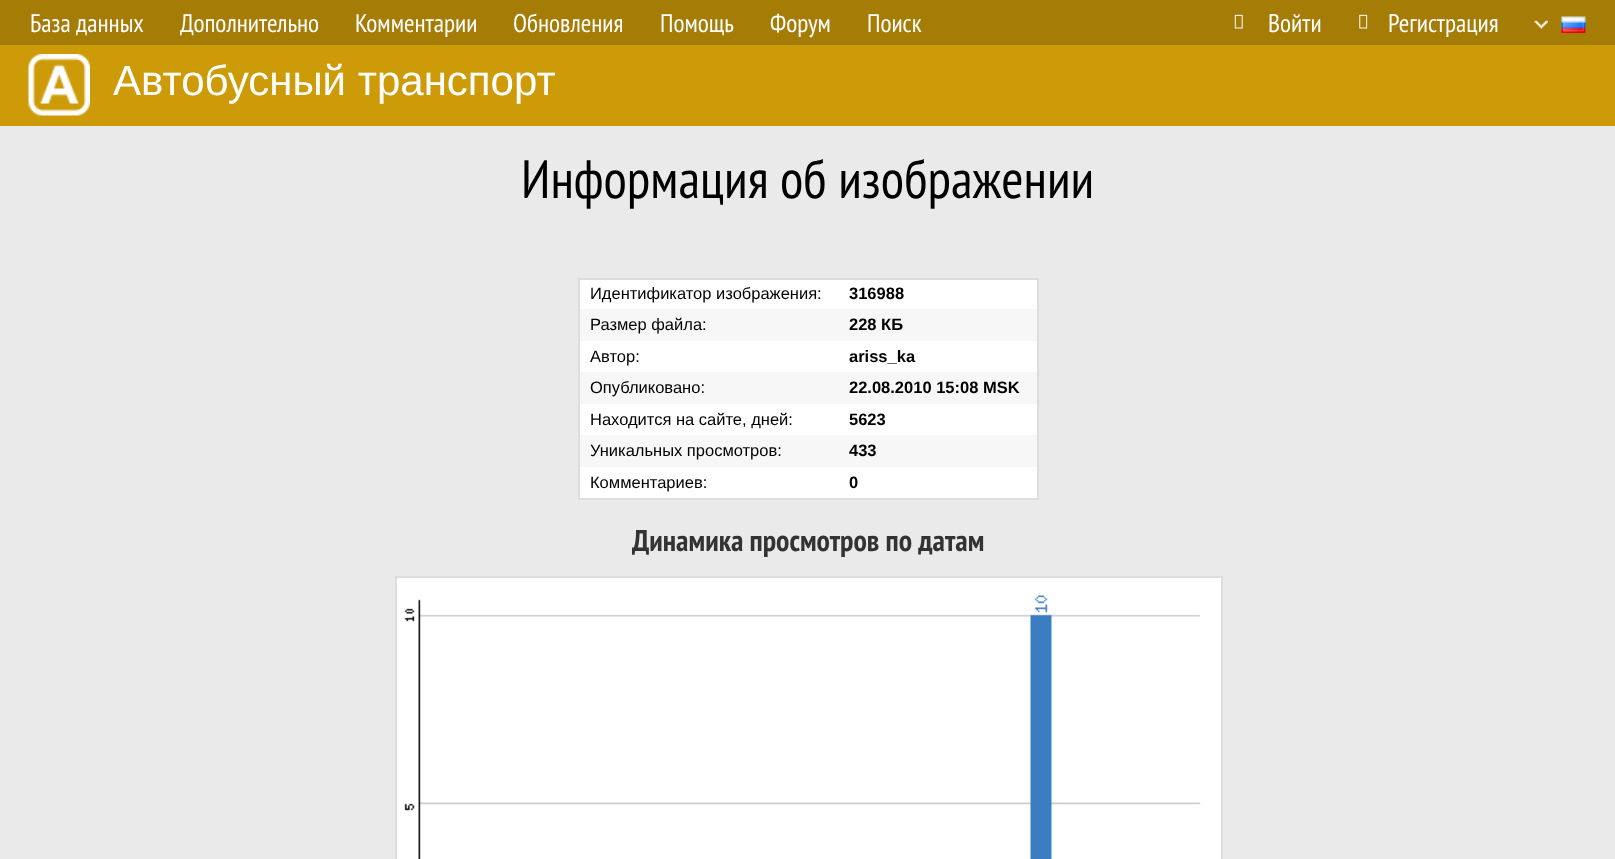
(async () => {
const canvas = document.querySelector("canvas")
canvas.width = 1615
canvas.height = 859
const c = canvas.getContext("2d")
c.miterLimit = 4
c.fontKerning = "normal"
function T(s,x,y){c.fillText(s,x,y)}
function R(x,y,w,h){c.fillRect(x,y,w,h)}
async function I(src,x,y,w,h){const img=new Image();img.src=src;await img.decode();c.drawImage(img,x,y,w,h)}
c.fillStyle="#a47c06"
R(0,0,1615,859)
c.font="25.5px PT Sans Narrow"
c.fillStyle="#fff"
T("База данных",30,32)
T("Дополнительно",180,32)
T("Комментарии",355,32)
T("Обновления",513,32)
T("Помощь",660,32)
T("Форум",770,32)
T("Поиск",867,32)
await I("1.png",1234,14,9,15)
T("Войти",1268,32)
await I("2.png",1359,14,9,15)
T("Регистрация",1388,32)
await I("3.png",1534,20,14,9)
await I("4.png",1561,16,25,17)
c.fillStyle="#cd9b08"
R(0,45,1615,81)
await I("5.png",28,54,62,62)
c.font="42px Liberation Sans"
c.fillStyle="#fff"
T("Автобусный транспорт",113,95)
c.fillStyle="#eaeaea"
R(0,126,1615,733)
c.font="54px PT Sans Narrow"
c.fillStyle="#000"
T("Информация об изображении",521,198)
c.fillStyle="#fff"
R(580,280,457,218)
c.fillStyle="#ddd"
R(578,278,460,2)
R(1037,278,2,222)
R(578,498,460,2)
R(578,278,2,222)
c.font="16.5px Liberation Sans"
c.fillStyle="#000"
T("Идентификатор изображения:",590,299)
c.font="bold 16.5px Liberation Sans"
T("316988",849,299)
c.fillStyle="#f7f7f7"
R(580,309,457,32)
c.font="16.5px Liberation Sans"
c.fillStyle="#000"
T("Размер файла:",590,330)
c.font="bold 16.5px Liberation Sans"
T("228 КБ",849,330)
c.font="16.5px Liberation Sans"
T("Автор:",590,362)
c.font="bold 16.5px Liberation Sans"
T("ariss_ka",849,362)
c.fillStyle="#f7f7f7"
R(580,372,457,32)
c.font="16.5px Liberation Sans"
c.fillStyle="#000"
T("Опубликовано:",590,393)
c.font="bold 16.5px Liberation Sans"
T("22.08.2010 15:08 MSK",849,393)
c.font="16.5px Liberation Sans"
T("Находится на сайте, дней:",590,425)
c.font="bold 16.5px Liberation Sans"
T("5623",849,425)
c.fillStyle="#f7f7f7"
R(580,435,457,32)
c.font="16.5px Liberation Sans"
c.fillStyle="#000"
T("Уникальных просмотров:",590,456)
c.font="bold 16.5px Liberation Sans"
T("433",849,456)
c.font="16.5px Liberation Sans"
T("Комментариев:",590,488)
c.font="bold 16.5px Liberation Sans"
T("0",849,488)
c.font="bold 30px PT Sans Narrow"
c.fillStyle="#333"
T("Динамика просмотров по датам",632,551)
c.fillStyle="#fff"
c.beginPath()
c.rect(396,577,826,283)
c.fill()
c.strokeStyle="#ddd"
c.lineWidth=2
c.stroke()
await I("6.png",404,595,797,264)
})()
